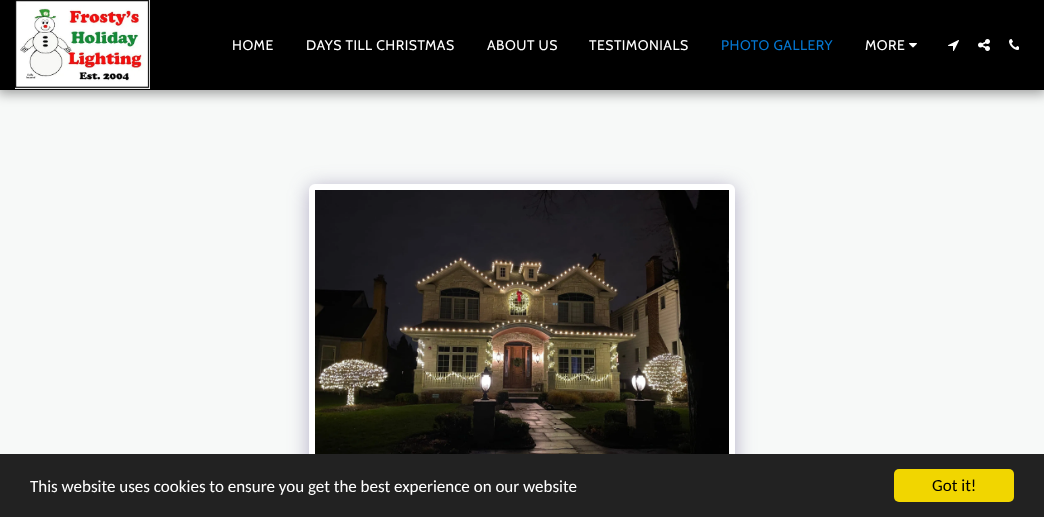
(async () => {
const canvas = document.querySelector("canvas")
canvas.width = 1044
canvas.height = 517
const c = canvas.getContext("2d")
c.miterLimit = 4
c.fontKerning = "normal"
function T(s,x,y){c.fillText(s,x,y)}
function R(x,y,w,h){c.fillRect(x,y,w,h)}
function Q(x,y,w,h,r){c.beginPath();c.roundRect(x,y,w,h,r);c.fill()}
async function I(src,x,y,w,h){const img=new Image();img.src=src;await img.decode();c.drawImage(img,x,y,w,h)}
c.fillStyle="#f7f9f8"
R(0,0,1044,517)
c.fillStyle="#00000059"
c.filter="blur(6px)"
c.beginPath()
c.rect(-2,0,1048,94)
c.fill()
c.filter="none"
c.fillStyle="#000"
R(0,0,1044,90)
await I("1.png",15,0,135,89)
c.letterSpacing="0.5px"
c.font="14px Cabin"
c.fillStyle="#fff"
T("HOME",232,50)
T("DAYS TILL CHRISTMAS",306,50)
T("ABOUT US",487,50)
T("TESTIMONIALS",589,50)
c.fillStyle="#0476d0"
T("PHOTO GALLERY",721,50)
c.fillStyle="#fff"
T("MORE",865,50)
await I("2.png",909,43,8,5)
await I("3.png",948,40,11,11)
await I("4.png",978,39,12,12)
await I("5.png",1009,39,10,11)
c.fillStyle="#4d3f7a66"
c.filter="blur(10px)"
c.beginPath()
c.roundRect(309,187,426,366,6)
c.fill()
c.filter="none"
c.fillStyle="#fff"
Q(309,184,426,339,6)
await I("6.png",315,190,414,264)
c.fillStyle="#222"
R(0,454,1044,63)
c.letterSpacing="0px"
c.font="17px Carlito"
c.fillStyle="#fff"
T("This website uses cookies to ensure you get the best experience on our website",30,492)
c.fillStyle="#f1d600"
Q(894,469,120,33,5)
c.fillStyle="#000"
T("Got it!",932,491)
})()
